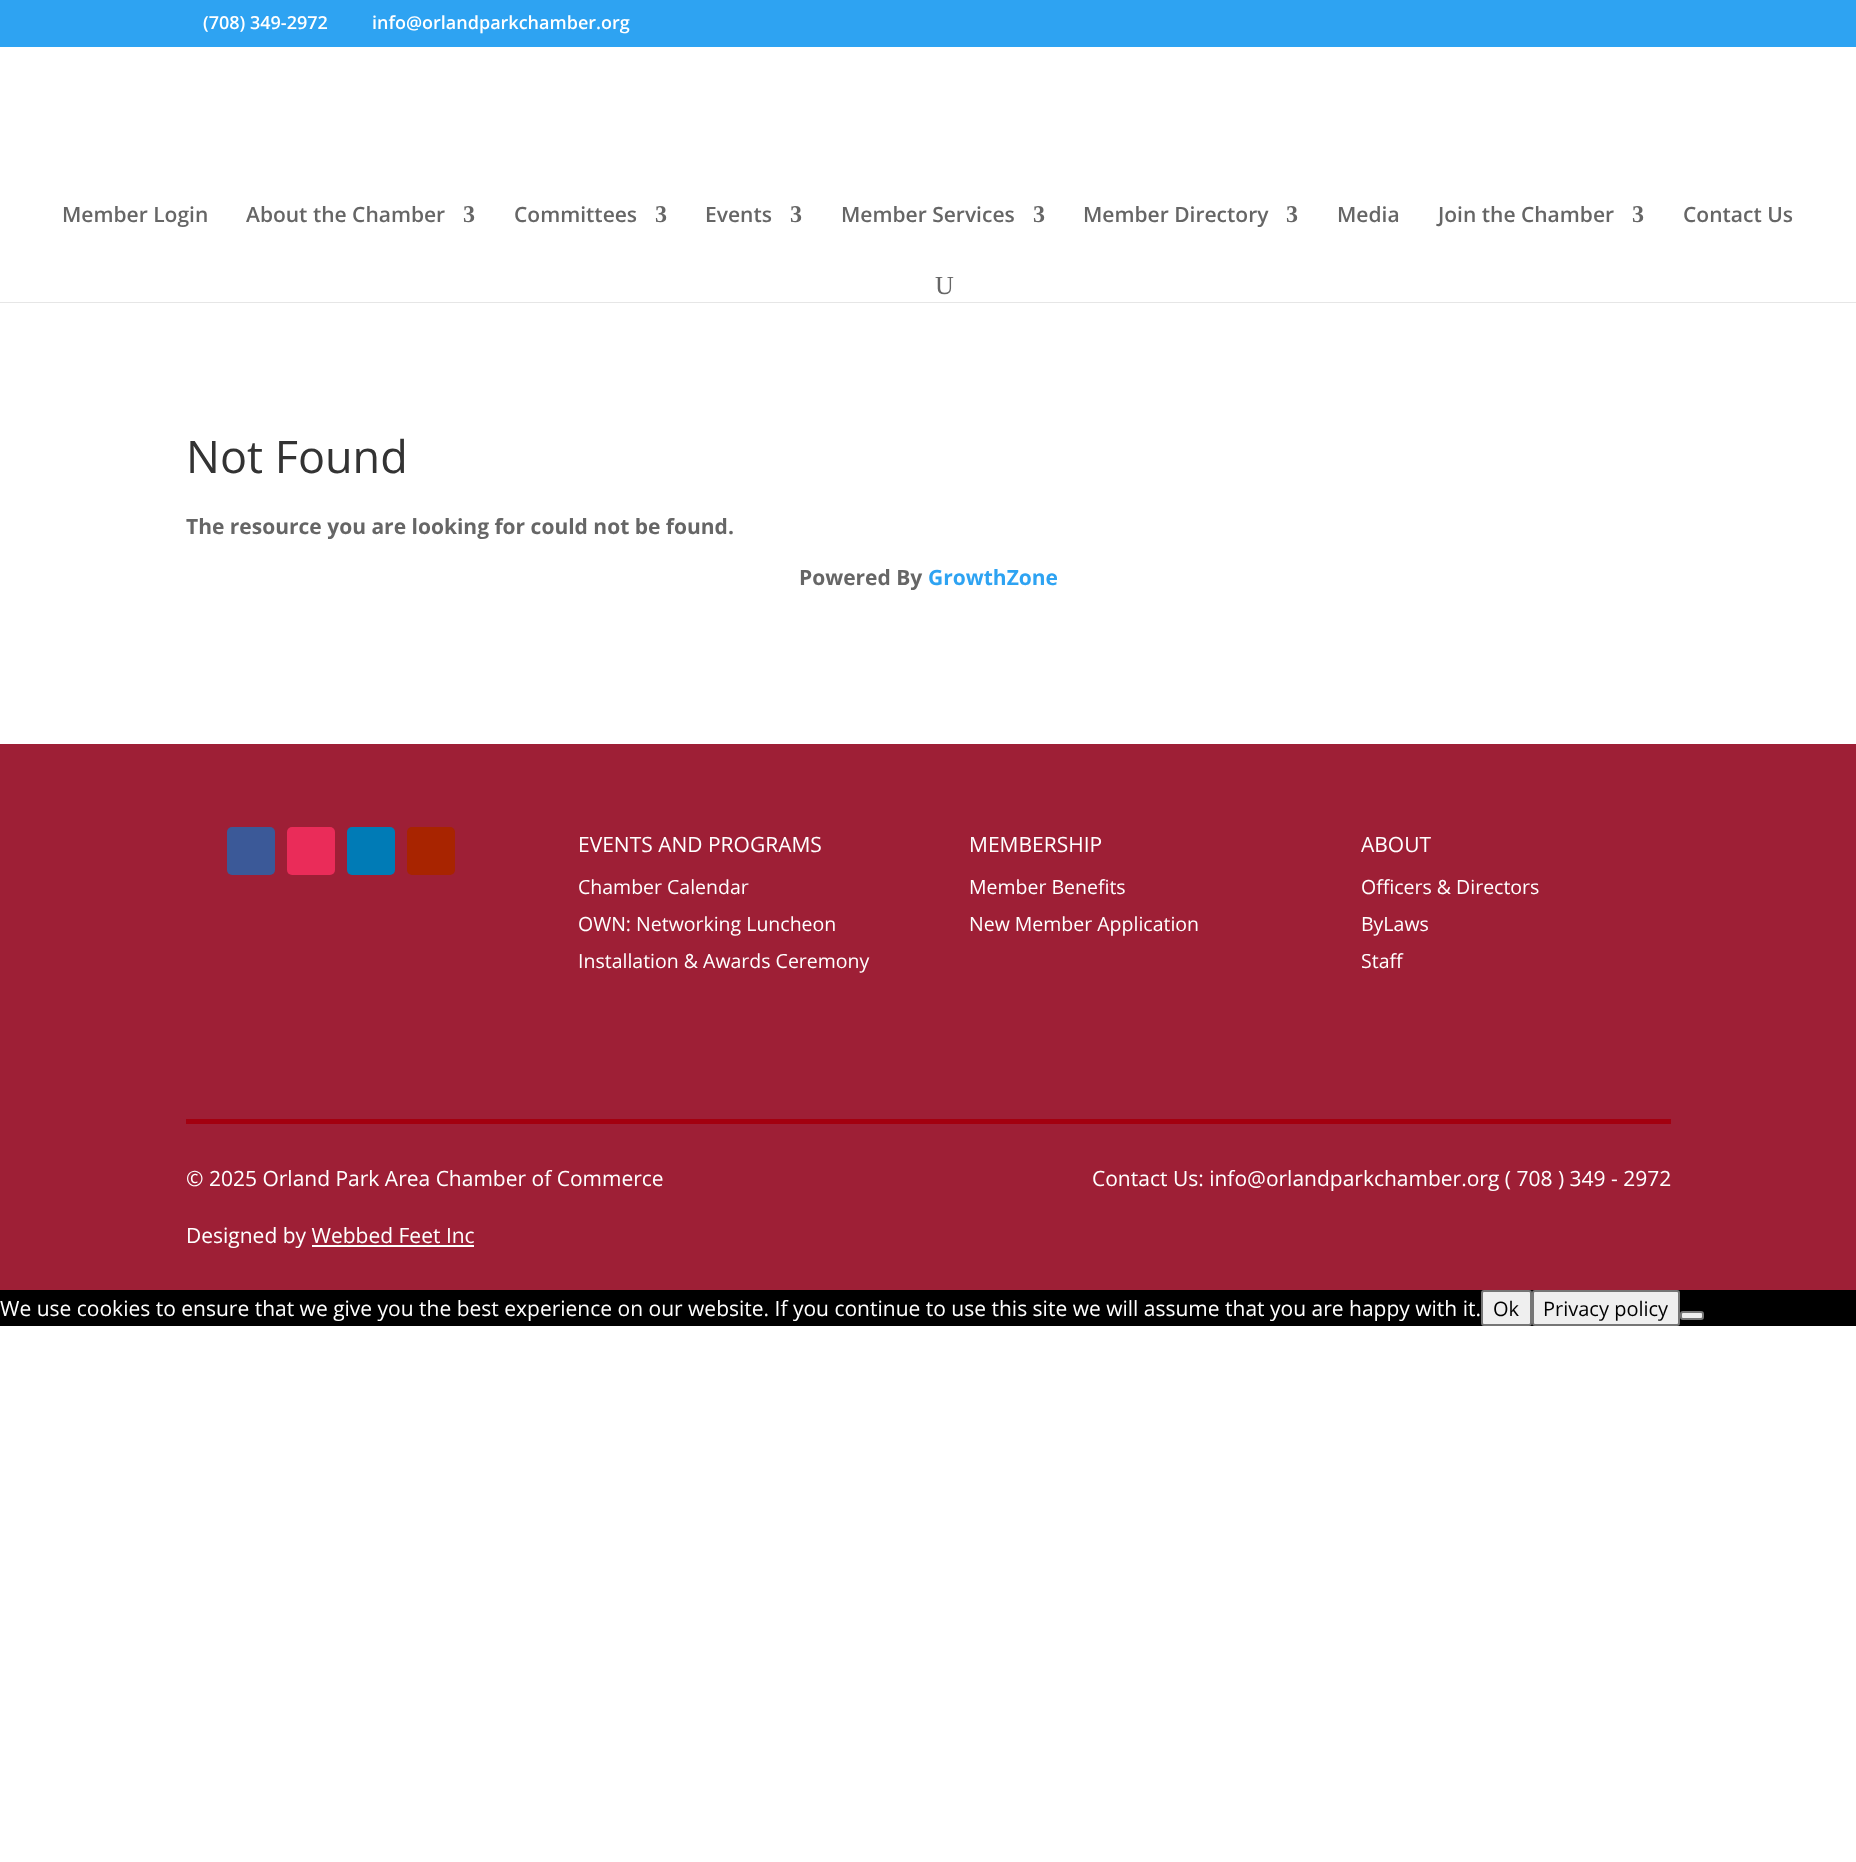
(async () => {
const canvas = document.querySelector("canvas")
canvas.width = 1856
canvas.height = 1862
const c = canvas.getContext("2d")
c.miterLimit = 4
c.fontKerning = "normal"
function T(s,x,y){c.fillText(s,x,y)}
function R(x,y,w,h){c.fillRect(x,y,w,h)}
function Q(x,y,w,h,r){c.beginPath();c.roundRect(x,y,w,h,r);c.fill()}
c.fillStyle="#fff"
R(0,0,1856,1862)
c.fillStyle="#2ea3f2"
R(0,0,1856,47)
c.font="600 18px Open Sans"
c.fillStyle="#fff"
T("(708) 349-2972",203,29)
T("info@orlandparkchamber.org",372,29)
c.fillStyle="#e6e6e6"
R(0,302,1856,1)
c.font="600 21px Open Sans"
c.fillStyle="#666"
T("Member Login",62,222)
T("About the Chamber",246,222)
c.font="bold 24px Liberation Serif"
T("3",463,222)
c.font="600 21px Open Sans"
T("Committees",514,222)
c.font="bold 24px Liberation Serif"
T("3",655,222)
c.font="600 21px Open Sans"
T("Events",705,222)
c.font="bold 24px Liberation Serif"
T("3",790,222)
c.font="600 21px Open Sans"
T("Member Services",841,222)
c.font="bold 24px Liberation Serif"
T("3",1033,222)
c.font="600 21px Open Sans"
T("Member Directory",1083,222)
c.font="bold 24px Liberation Serif"
T("3",1286,222)
c.font="600 21px Open Sans"
T("Media",1337,222)
T("Join the Chamber",1438,222)
c.font="bold 24px Liberation Serif"
T("3",1632,222)
c.font="600 21px Open Sans"
T("Contact Us",1683,222)
c.font="26px Liberation Serif"
T("U",935,294)
c.font="45px Open Sans"
c.fillStyle="#333"
T("Not Found",186,473)
c.font="bold 21px Open Sans"
c.fillStyle="#666"
T("The resource you are looking for could not be found.",186,534)
T("Powered By",799,585)
c.fillStyle="#2ea3f2"
T("GrowthZone",928,585)
c.fillStyle="#9e1f36"
R(0,744,1856,546)
c.fillStyle="#a30010"
R(186,1119,1485,5)
c.fillStyle="#3b5998"
Q(227,827,48,48,5)
c.fillStyle="#ea2c59"
Q(287,827,48,48,5)
c.fillStyle="#007bb6"
Q(347,827,48,48,5)
c.fillStyle="#a82400"
Q(407,827,48,48,5)
c.font="21px Open Sans"
c.fillStyle="#fff"
T("EVENTS AND PROGRAMS",578,852)
c.font="19.5px Open Sans"
T("Chamber Calendar",578,894)
T("OWN: Networking Luncheon",578,931)
T("Installation & Awards Ceremony",578,968)
c.font="21px Open Sans"
T("MEMBERSHIP",969,852)
c.font="19.5px Open Sans"
T("Member Benefits",969,894)
T("New Member Application",969,931)
c.font="21px Open Sans"
T("ABOUT",1361,852)
c.font="19.5px Open Sans"
T("Officers & Directors",1361,894)
T("ByLaws",1361,931)
T("Staff",1361,968)
c.font="21px Open Sans"
T("© 2025 Orland Park Area Chamber of Commerce",186,1186)
T("Designed by Webbed Feet Inc",186,1243)
R(312,1245,162,2)
T("Contact Us: info@orlandparkchamber.org ( 708 ) 349 - 2972",1092,1186)
c.fillStyle="#000"
R(0,1290,1856,36)
c.fillStyle="#fff"
T("We use cookies to ensure that we give you the best experience on our website. If you continue to use this site we will assume that you are happy with it.",0,1316)
c.fillStyle="#efefef"
c.beginPath()
c.roundRect(1482,1291,49,34,2)
c.fill()
c.strokeStyle="#767676"
c.lineWidth=2
c.stroke()
c.font="20px Open Sans"
c.fillStyle="#000"
T("Ok",1493,1316)
c.fillStyle="#efefef"
c.beginPath()
c.roundRect(1533,1291,146,34,2)
c.fill()
c.stroke()
c.fillStyle="#000"
T("Privacy policy",1543,1316)
c.fillStyle="#efefef"
c.beginPath()
c.roundRect(1681,1312,22,7,2)
c.fill()
c.stroke()
})()
